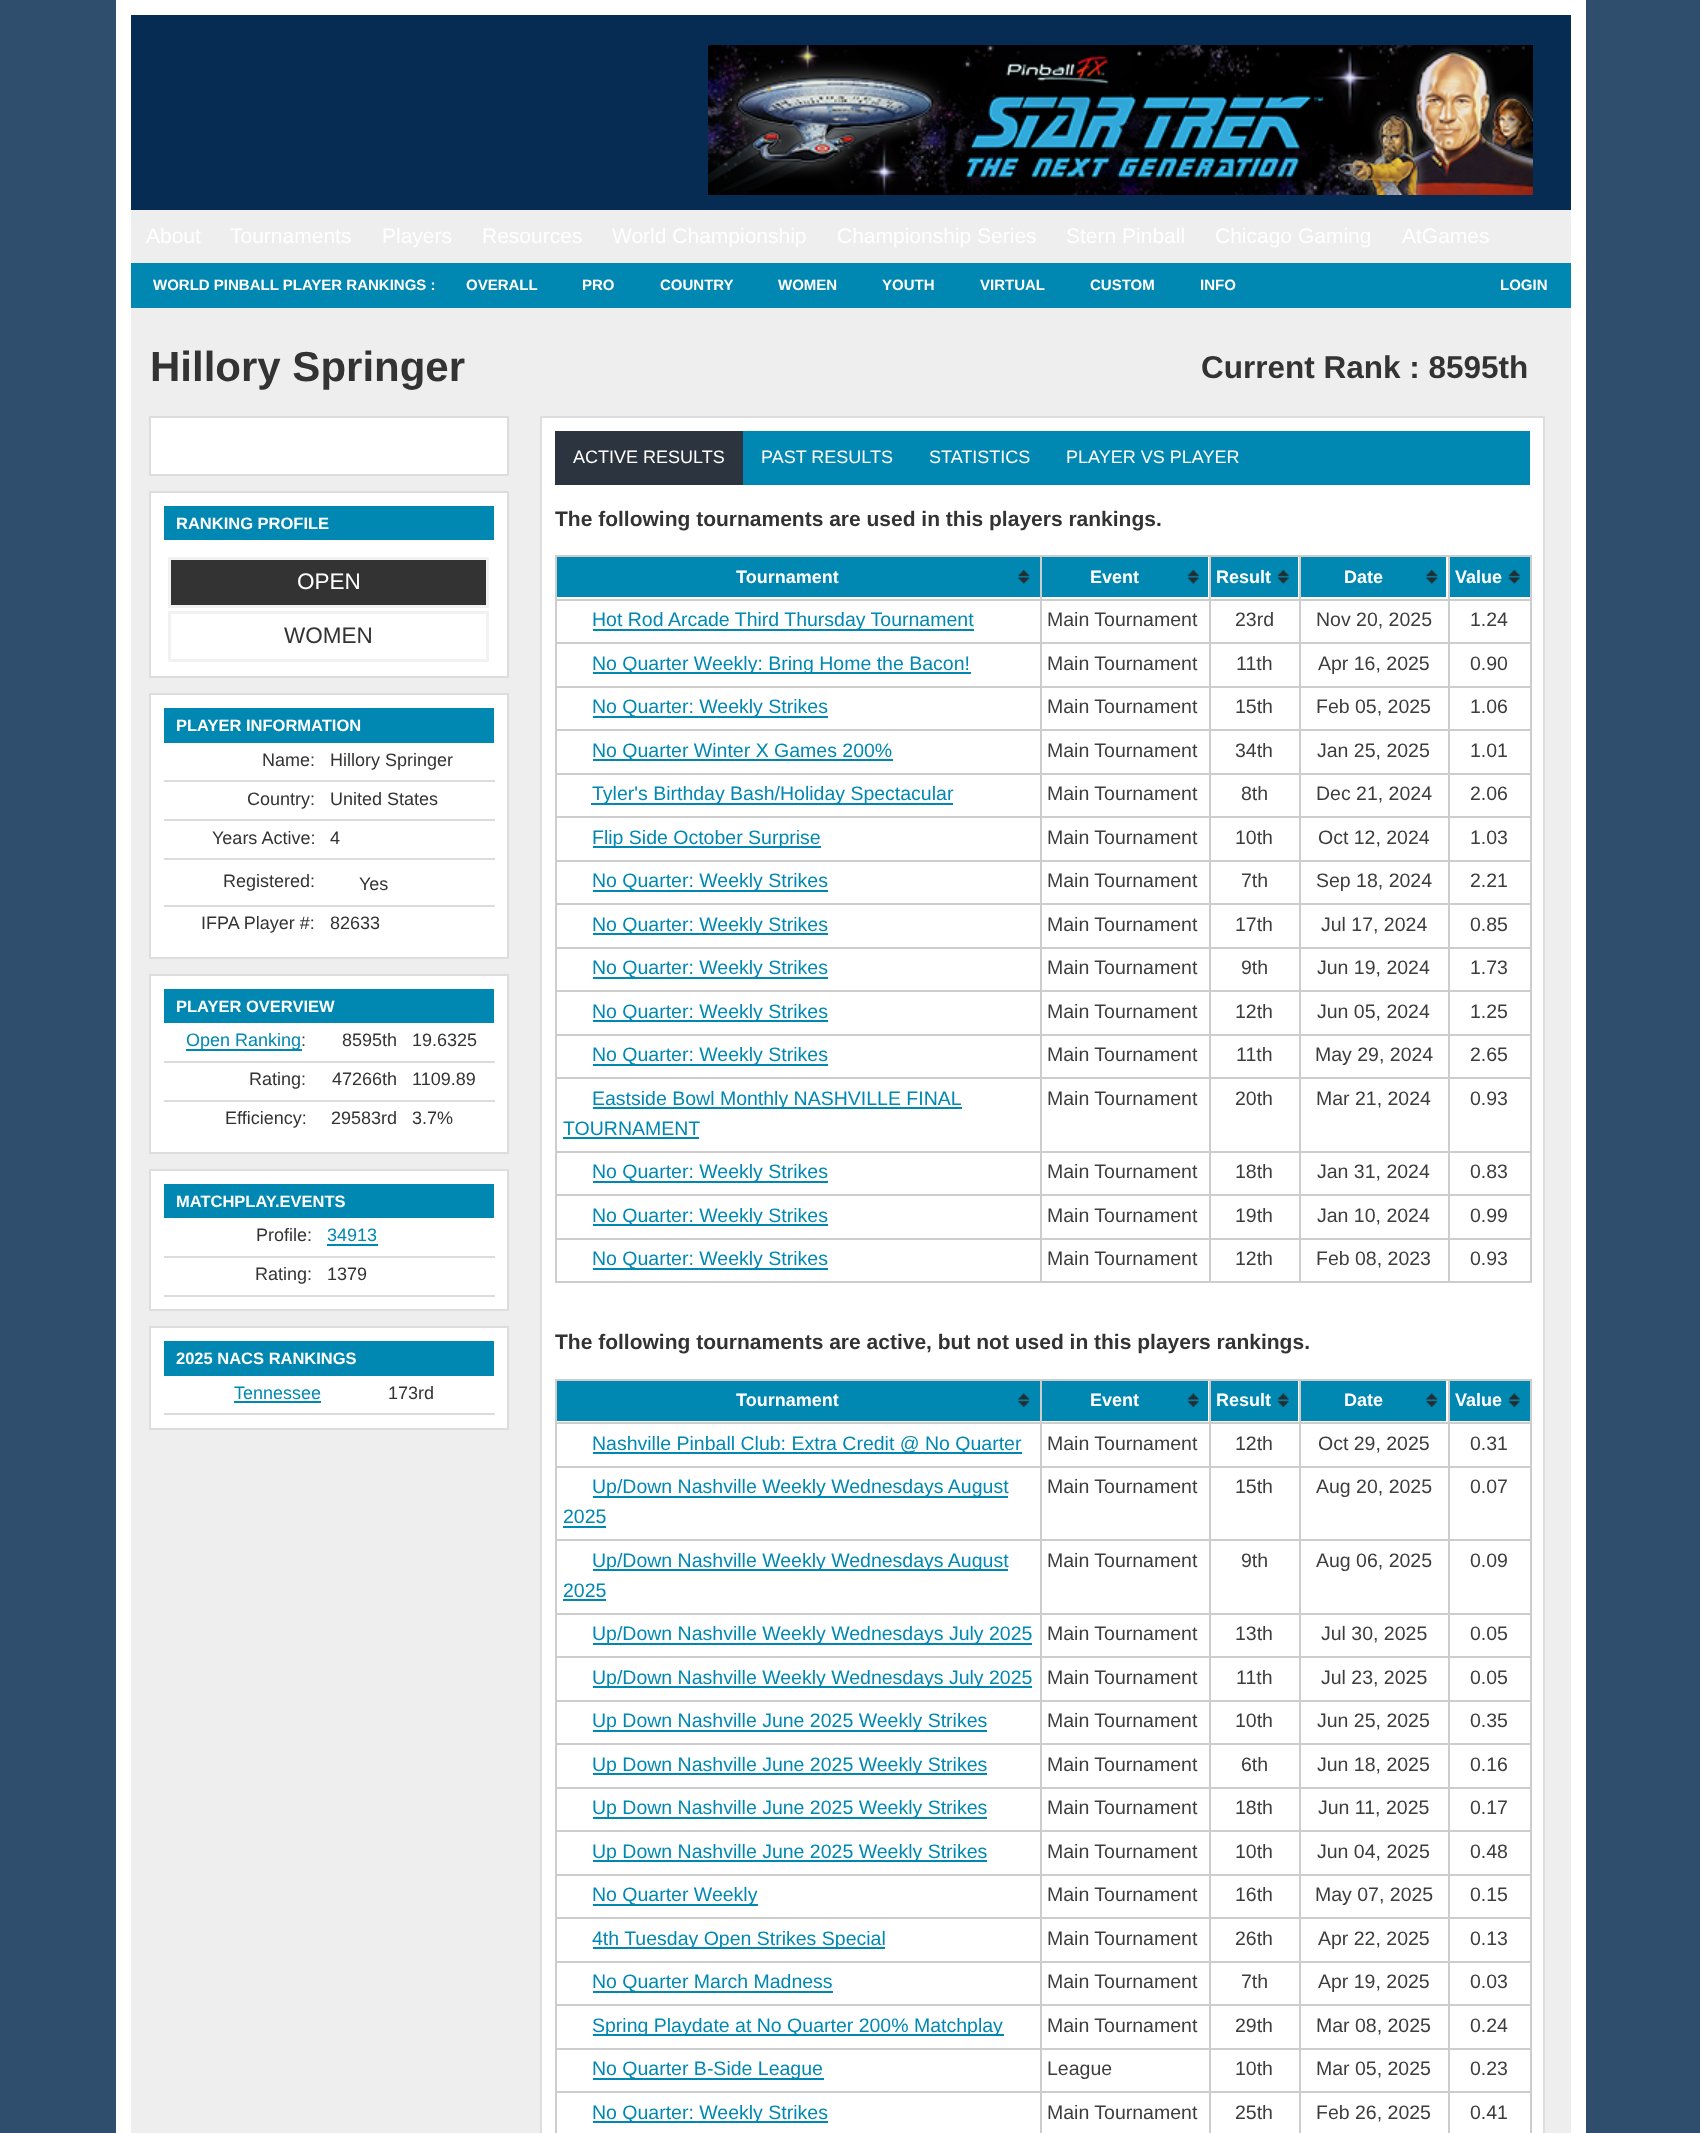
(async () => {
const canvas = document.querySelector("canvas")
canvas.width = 1700
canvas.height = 2133
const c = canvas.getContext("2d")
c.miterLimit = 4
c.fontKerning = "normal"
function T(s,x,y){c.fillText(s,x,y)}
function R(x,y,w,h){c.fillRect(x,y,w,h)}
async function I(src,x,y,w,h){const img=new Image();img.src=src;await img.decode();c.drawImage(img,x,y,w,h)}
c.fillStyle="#2f4e6e"
R(0,0,1700,2133)
c.fillStyle="#eee"
R(131,210,1440,53)
c.fillStyle="#fff"
R(131,0,1440,15)
R(1571,0,15,308)
R(116,0,15,308)
c.fillStyle="#072c53"
R(131,15,1440,195)
await I("1.png",708,45,825,150)
c.font="21px Liberation Sans"
c.fillStyle="#fff"
T("About",146,243)
T("Tournaments",230,243)
T("Players",382,243)
T("Resources",482,243)
T("World Championship",612,243)
T("Championship Series",837,243)
T("Stern Pinball",1066,243)
T("Chicago Gaming",1215,243)
T("AtGames",1402,243)
c.fillStyle="#0088b3"
R(131,263,1440,45)
c.font="bold 15px Liberation Sans"
c.fillStyle="#fff"
T("WORLD PINBALL PLAYER RANKINGS :",153,290)
T("OVERALL",466,290)
T("PRO",582,290)
T("COUNTRY",660,290)
T("WOMEN",778,290)
T("YOUTH",882,290)
T("VIRTUAL",980,290)
T("CUSTOM",1090,290)
T("INFO",1200,290)
T("LOGIN",1500,290)
c.fillStyle="#eee"
R(131,308,1440,1825)
c.fillStyle="#fff"
R(1571,308,15,1825)
R(116,308,15,1825)
c.font="bold 42px Liberation Sans"
c.fillStyle="#333"
T("Hillory Springer",150,381)
c.font="bold 31.5px Liberation Sans"
T("Current Rank : 8595th",1201,378)
c.fillStyle="#fff"
c.beginPath()
c.rect(150,417,358,58)
c.fill()
c.strokeStyle="#ddd"
c.lineWidth=2
c.stroke()
c.beginPath()
c.rect(150,492,358,185)
c.fill()
c.stroke()
c.fillStyle="#0088b3"
R(164,506,330,34)
c.font="bold 16.5px Liberation Sans"
c.fillStyle="#fff"
T("RANKING PROFILE",176,529)
c.fillStyle="#333"
c.beginPath()
c.rect(169.5,558.5,318,48)
c.fill()
c.strokeStyle="#f2f2f2"
c.lineWidth=3
c.stroke()
c.font="22.5px Liberation Sans"
c.fillStyle="#fff"
T("OPEN",297,589)
c.strokeRect(169.5,612.5,318,48)
c.fillStyle="#333"
T("WOMEN",284,643)
c.fillStyle="#fff"
c.beginPath()
c.rect(150,694,358,264)
c.fill()
c.strokeStyle="#ddd"
c.lineWidth=2
c.stroke()
c.fillStyle="#0088b3"
R(164,708,330,35)
c.font="bold 16.5px Liberation Sans"
c.fillStyle="#fff"
T("PLAYER INFORMATION",176,731)
c.font="18px Liberation Sans"
c.fillStyle="#333"
T("Name:",262,766)
c.fillStyle="#dcdcdc"
R(164,780,331,2)
c.fillStyle="#333"
T("Hillory Springer",330,766)
T("Country:",247,805)
c.fillStyle="#dcdcdc"
R(164,819,331,2)
c.fillStyle="#333"
T("United States",330,805)
T("Years Active:",212,844)
c.fillStyle="#dcdcdc"
R(164,858,331,2)
c.fillStyle="#333"
T("4",330,844)
T("Registered:",223,887)
c.fillStyle="#dcdcdc"
R(164,905,331,2)
c.fillStyle="#333"
T("Yes",359,890)
T("IFPA Player #:",201,929)
T("82633",330,929)
c.fillStyle="#fff"
c.beginPath()
c.rect(150,975,358,178)
c.fill()
c.stroke()
c.fillStyle="#0088b3"
R(164,989,330,34)
c.font="bold 16.5px Liberation Sans"
c.fillStyle="#fff"
T("PLAYER OVERVIEW",176,1012)
c.fillStyle="#0088b3"
R(186,1049,116,2)
c.font="18px Liberation Sans"
T("Open Ranking",186,1046)
c.fillStyle="#333"
T(":",301,1046)
T("8595th",342,1046)
c.fillStyle="#dcdcdc"
R(164,1061,331,2)
c.fillStyle="#333"
T("19.6325",412,1046)
T("Rating:",249,1085)
T("47266th",332,1085)
c.fillStyle="#dcdcdc"
R(164,1100,331,2)
c.fillStyle="#333"
T("1109.89",412,1085)
T("Efficiency:",225,1124)
T("29583rd",331,1124)
T("3.7%",412,1124)
c.fillStyle="#fff"
c.beginPath()
c.rect(150,1170,358,140)
c.fill()
c.stroke()
c.fillStyle="#0088b3"
R(164,1184,330,34)
c.font="bold 16.5px Liberation Sans"
c.fillStyle="#fff"
T("MATCHPLAY.EVENTS",176,1207)
c.font="18px Liberation Sans"
c.fillStyle="#333"
T("Profile:",256,1241)
c.fillStyle="#0088b3"
T("34913",327,1241)
R(327,1244,51,2)
c.fillStyle="#dcdcdc"
R(164,1256,331,2)
c.fillStyle="#333"
T("Rating:",255,1280)
T("1379",327,1280)
c.fillStyle="#dcdcdc"
R(164,1295,331,2)
c.fillStyle="#fff"
c.beginPath()
c.rect(150,1327,358,102)
c.fill()
c.stroke()
c.fillStyle="#0088b3"
R(164,1341,330,35)
c.font="bold 16.5px Liberation Sans"
c.fillStyle="#fff"
T("2025 NACS RANKINGS",176,1364)
c.font="18px Liberation Sans"
c.fillStyle="#0088b3"
T("Tennessee",234,1399)
R(234,1401,87,2)
c.fillStyle="#dcdcdc"
R(164,1413,331,2)
c.fillStyle="#333"
T("173rd",388,1399)
c.fillStyle="#fff"
c.beginPath()
c.rect(541,417,1003,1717)
c.fill()
c.stroke()
c.fillStyle="#0088b3"
R(743,431,787,54)
c.fillStyle="#2c343f"
R(555,431,188,54)
c.fillStyle="#fff"
T("ACTIVE RESULTS",573,463)
T("PAST RESULTS",761,463)
T("STATISTICS",929,463)
T("PLAYER VS PLAYER",1066,463)
c.font="bold 21px Liberation Sans"
c.fillStyle="#333"
T("The following tournaments are used in this players rankings.",555,526)
c.fillStyle="#cdcdcd"
R(555,555,977,2)
R(555,555,2,728)
c.fillStyle="#0088b3"
R(557,557,483,40)
await I("2.png",1018,570,12,14)
c.fillStyle="#cdcdcd"
R(1530,555,2,728)
R(1448,1281,84,2)
R(1448,1238,2,45)
R(1448,1238,84,2)
R(1448,1194,2,45)
R(1448,1194,84,2)
R(1448,1151,2,45)
R(1448,1151,84,2)
R(1448,1077,2,75)
R(1448,1077,84,2)
R(1448,1034,2,45)
R(1448,1034,84,2)
R(1448,990,2,45)
R(1448,990,84,2)
R(1448,947,2,45)
R(1448,947,84,2)
R(1448,903,2,45)
R(1448,903,84,2)
R(1448,860,2,45)
R(1448,860,84,2)
R(1448,816,2,45)
R(1448,816,84,2)
R(1448,773,2,45)
R(1448,773,84,2)
R(1448,729,2,45)
R(1448,729,84,2)
R(1448,686,2,45)
R(1448,686,84,2)
R(1448,642,2,45)
R(1448,642,84,2)
R(1448,599,2,45)
R(1448,599,84,2)
R(1448,555,2,45)
R(1299,1281,150,2)
R(1299,1238,2,45)
R(1299,1238,150,2)
R(1299,1194,2,45)
R(1299,1194,150,2)
R(1299,1151,2,45)
R(1299,1151,150,2)
R(1299,1077,2,75)
R(1299,1077,150,2)
R(1299,1034,2,45)
R(1299,1034,150,2)
R(1299,990,2,45)
R(1299,990,150,2)
R(1299,947,2,45)
R(1299,947,150,2)
R(1299,903,2,45)
R(1299,903,150,2)
R(1299,860,2,45)
R(1299,860,150,2)
R(1299,816,2,45)
R(1299,816,150,2)
R(1299,773,2,45)
R(1299,773,150,2)
R(1299,729,2,45)
R(1299,729,150,2)
R(1299,686,2,45)
R(1299,686,150,2)
R(1299,642,2,45)
R(1299,642,150,2)
R(1299,599,2,45)
R(1299,599,150,2)
R(1299,555,2,45)
R(1209,1281,92,2)
R(1209,1238,2,45)
R(1209,1238,92,2)
R(1209,1194,2,45)
R(1209,1194,92,2)
R(1209,1151,2,45)
R(1209,1151,92,2)
R(1209,1077,2,75)
R(1209,1077,92,2)
R(1209,1034,2,45)
R(1209,1034,92,2)
R(1209,990,2,45)
R(1209,990,92,2)
R(1209,947,2,45)
R(1209,947,92,2)
R(1209,903,2,45)
R(1209,903,92,2)
R(1209,860,2,45)
R(1209,860,92,2)
R(1209,816,2,45)
R(1209,816,92,2)
R(1209,773,2,45)
R(1209,773,92,2)
R(1209,729,2,45)
R(1209,729,92,2)
R(1209,686,2,45)
R(1209,686,92,2)
R(1209,642,2,45)
R(1209,642,92,2)
R(1209,599,2,45)
R(1209,599,92,2)
R(1209,555,2,45)
R(1040,1281,171,2)
R(1040,1238,2,45)
R(1040,1238,171,2)
R(1040,1194,2,45)
R(1040,1194,171,2)
R(1040,1151,2,45)
R(1040,1151,171,2)
R(1040,1077,2,75)
R(1040,1077,171,2)
R(1040,1034,2,45)
R(1040,1034,171,2)
R(1040,990,2,45)
R(1040,990,171,2)
R(1040,947,2,45)
R(1040,947,171,2)
R(1040,903,2,45)
R(1040,903,171,2)
R(1040,860,2,45)
R(1040,860,171,2)
R(1040,816,2,45)
R(1040,816,171,2)
R(1040,773,2,45)
R(1040,773,171,2)
R(1040,729,2,45)
R(1040,729,171,2)
R(1040,686,2,45)
R(1040,686,171,2)
R(1040,642,2,45)
R(1040,642,171,2)
R(1040,599,2,45)
R(1040,599,171,2)
R(1040,555,2,45)
R(555,599,486,2)
c.font="bold 18px Liberation Sans"
c.fillStyle="#fff"
T("Tournament",736,583)
c.fillStyle="#0088b3"
R(1042,557,166,40)
await I("3.png",1187,570,12,14)
c.fillStyle="#fff"
T("Event",1090,583)
c.fillStyle="#0088b3"
R(1211,557,87,40)
await I("4.png",1277,570,12,14)
c.fillStyle="#fff"
T("Result",1216,583)
c.fillStyle="#0088b3"
R(1301,557,145,40)
await I("2.png",1426,570,12,14)
c.fillStyle="#fff"
T("Date",1344,583)
c.fillStyle="#0088b3"
R(1450,557,80,40)
await I("3.png",1508,570,12,14)
c.fillStyle="#fff"
T("Value",1455,583)
c.fillStyle="#cdcdcd"
R(555,642,486,2)
c.fillStyle="#0088b3"
R(593,629,381,2)
c.font="19.5px Liberation Sans"
T("Hot Rod Arcade Third Thursday Tournament",592,626)
c.fillStyle="#3d3d3d"
T("Main Tournament",1047,626)
T("23rd",1235,626)
T("Nov 20, 2025",1316,626)
T("1.24",1470,626)
c.fillStyle="#cdcdcd"
R(555,686,486,2)
c.fillStyle="#0088b3"
R(593,672,378,2)
T("No Quarter Weekly: Bring Home the Bacon!",592,670)
c.fillStyle="#3d3d3d"
T("Main Tournament",1047,670)
T("11th",1236,670)
T("Apr 16, 2025",1318,670)
T("0.90",1470,670)
c.fillStyle="#cdcdcd"
R(555,729,486,2)
c.fillStyle="#0088b3"
R(593,716,235,2)
T("No Quarter: Weekly Strikes",592,713)
c.fillStyle="#3d3d3d"
T("Main Tournament",1047,713)
T("15th",1235,713)
T("Feb 05, 2025",1316,713)
T("1.06",1470,713)
c.fillStyle="#cdcdcd"
R(555,773,486,2)
c.fillStyle="#0088b3"
R(593,759,300,2)
T("No Quarter Winter X Games 200%",592,757)
c.fillStyle="#3d3d3d"
T("Main Tournament",1047,757)
T("34th",1235,757)
T("Jan 25, 2025",1317,757)
T("1.01",1470,757)
c.fillStyle="#cdcdcd"
R(555,816,486,2)
c.fillStyle="#0088b3"
R(591,803,362,2)
T("Tyler's Birthday Bash/Holiday Spectacular",592,800)
c.fillStyle="#3d3d3d"
T("Main Tournament",1047,800)
T("8th",1241,800)
T("Dec 21, 2024",1316,800)
T("2.06",1470,800)
c.fillStyle="#cdcdcd"
R(555,860,486,2)
c.fillStyle="#0088b3"
R(593,846,228,2)
T("Flip Side October Surprise",592,844)
c.fillStyle="#3d3d3d"
T("Main Tournament",1047,844)
T("10th",1235,844)
T("Oct 12, 2024",1318,844)
T("1.03",1470,844)
c.fillStyle="#cdcdcd"
R(555,903,486,2)
c.fillStyle="#0088b3"
R(593,890,235,2)
T("No Quarter: Weekly Strikes",592,887)
c.fillStyle="#3d3d3d"
T("Main Tournament",1047,887)
T("7th",1241,887)
T("Sep 18, 2024",1316,887)
T("2.21",1470,887)
c.fillStyle="#cdcdcd"
R(555,947,486,2)
c.fillStyle="#0088b3"
R(593,933,235,2)
T("No Quarter: Weekly Strikes",592,931)
c.fillStyle="#3d3d3d"
T("Main Tournament",1047,931)
T("17th",1235,931)
T("Jul 17, 2024",1321,931)
T("0.85",1470,931)
c.fillStyle="#cdcdcd"
R(555,990,486,2)
c.fillStyle="#0088b3"
R(593,977,235,2)
T("No Quarter: Weekly Strikes",592,974)
c.fillStyle="#3d3d3d"
T("Main Tournament",1047,974)
T("9th",1241,974)
T("Jun 19, 2024",1317,974)
T("1.73",1470,974)
c.fillStyle="#cdcdcd"
R(555,1034,486,2)
c.fillStyle="#0088b3"
R(593,1020,235,2)
T("No Quarter: Weekly Strikes",592,1018)
c.fillStyle="#3d3d3d"
T("Main Tournament",1047,1018)
T("12th",1235,1018)
T("Jun 05, 2024",1317,1018)
T("1.25",1470,1018)
c.fillStyle="#cdcdcd"
R(555,1077,486,2)
c.fillStyle="#0088b3"
R(593,1064,235,2)
T("No Quarter: Weekly Strikes",592,1061)
c.fillStyle="#3d3d3d"
T("Main Tournament",1047,1061)
T("11th",1236,1061)
T("May 29, 2024",1315,1061)
T("2.65",1470,1061)
c.fillStyle="#cdcdcd"
R(555,1151,486,2)
c.fillStyle="#0088b3"
R(593,1107,369,2)
T("Eastside Bowl Monthly NASHVILLE FINAL",592,1105)
T("TOURNAMENT",563,1135)
R(563,1137,136,2)
c.fillStyle="#3d3d3d"
T("Main Tournament",1047,1105)
T("20th",1235,1105)
T("Mar 21, 2024",1316,1105)
T("0.93",1470,1105)
c.fillStyle="#cdcdcd"
R(555,1194,486,2)
c.fillStyle="#0088b3"
R(593,1181,235,2)
T("No Quarter: Weekly Strikes",592,1178)
c.fillStyle="#3d3d3d"
T("Main Tournament",1047,1178)
T("18th",1235,1178)
T("Jan 31, 2024",1317,1178)
T("0.83",1470,1178)
c.fillStyle="#cdcdcd"
R(555,1238,486,2)
c.fillStyle="#0088b3"
R(593,1224,235,2)
T("No Quarter: Weekly Strikes",592,1222)
c.fillStyle="#3d3d3d"
T("Main Tournament",1047,1222)
T("19th",1235,1222)
T("Jan 10, 2024",1317,1222)
T("0.99",1470,1222)
c.fillStyle="#cdcdcd"
R(555,1281,486,2)
c.fillStyle="#0088b3"
R(593,1268,235,2)
T("No Quarter: Weekly Strikes",592,1265)
c.fillStyle="#3d3d3d"
T("Main Tournament",1047,1265)
T("12th",1235,1265)
T("Feb 08, 2023",1316,1265)
T("0.93",1470,1265)
c.font="bold 21px Liberation Sans"
c.fillStyle="#333"
T("The following tournaments are active, but not used in this players rankings.",555,1349)
c.fillStyle="#cdcdcd"
R(555,1379,977,2)
R(555,1379,2,754)
c.fillStyle="#0088b3"
R(557,1381,483,40)
await I("5.png",1018,1393,12,14)
c.fillStyle="#cdcdcd"
R(1448,2091,2,42)
R(1530,1379,2,754)
R(1448,2091,84,2)
R(1448,2048,2,45)
R(1448,2048,84,2)
R(1448,2004,2,45)
R(1448,2004,84,2)
R(1448,1961,2,45)
R(1448,1961,84,2)
R(1448,1917,2,45)
R(1448,1917,84,2)
R(1448,1874,2,45)
R(1448,1874,84,2)
R(1448,1830,2,45)
R(1448,1830,84,2)
R(1448,1787,2,45)
R(1448,1787,84,2)
R(1448,1743,2,45)
R(1448,1743,84,2)
R(1448,1700,2,45)
R(1448,1700,84,2)
R(1448,1656,2,45)
R(1448,1656,84,2)
R(1448,1613,2,45)
R(1448,1613,84,2)
R(1448,1539,2,75)
R(1448,1539,84,2)
R(1448,1466,2,75)
R(1448,1466,84,2)
R(1448,1422,2,45)
R(1448,1422,84,2)
R(1448,1379,2,45)
R(1299,2091,2,42)
R(1299,2091,150,2)
R(1299,2048,2,45)
R(1299,2048,150,2)
R(1299,2004,2,45)
R(1299,2004,150,2)
R(1299,1961,2,45)
R(1299,1961,150,2)
R(1299,1917,2,45)
R(1299,1917,150,2)
R(1299,1874,2,45)
R(1299,1874,150,2)
R(1299,1830,2,45)
R(1299,1830,150,2)
R(1299,1787,2,45)
R(1299,1787,150,2)
R(1299,1743,2,45)
R(1299,1743,150,2)
R(1299,1700,2,45)
R(1299,1700,150,2)
R(1299,1656,2,45)
R(1299,1656,150,2)
R(1299,1613,2,45)
R(1299,1613,150,2)
R(1299,1539,2,75)
R(1299,1539,150,2)
R(1299,1466,2,75)
R(1299,1466,150,2)
R(1299,1422,2,45)
R(1299,1422,150,2)
R(1299,1379,2,45)
R(1209,2091,2,42)
R(1209,2091,92,2)
R(1209,2048,2,45)
R(1209,2048,92,2)
R(1209,2004,2,45)
R(1209,2004,92,2)
R(1209,1961,2,45)
R(1209,1961,92,2)
R(1209,1917,2,45)
R(1209,1917,92,2)
R(1209,1874,2,45)
R(1209,1874,92,2)
R(1209,1830,2,45)
R(1209,1830,92,2)
R(1209,1787,2,45)
R(1209,1787,92,2)
R(1209,1743,2,45)
R(1209,1743,92,2)
R(1209,1700,2,45)
R(1209,1700,92,2)
R(1209,1656,2,45)
R(1209,1656,92,2)
R(1209,1613,2,45)
R(1209,1613,92,2)
R(1209,1539,2,75)
R(1209,1539,92,2)
R(1209,1466,2,75)
R(1209,1466,92,2)
R(1209,1422,2,45)
R(1209,1422,92,2)
R(1209,1379,2,45)
R(1040,2091,2,42)
R(1040,2091,171,2)
R(1040,2048,2,45)
R(1040,2048,171,2)
R(1040,2004,2,45)
R(1040,2004,171,2)
R(1040,1961,2,45)
R(1040,1961,171,2)
R(1040,1917,2,45)
R(1040,1917,171,2)
R(1040,1874,2,45)
R(1040,1874,171,2)
R(1040,1830,2,45)
R(1040,1830,171,2)
R(1040,1787,2,45)
R(1040,1787,171,2)
R(1040,1743,2,45)
R(1040,1743,171,2)
R(1040,1700,2,45)
R(1040,1700,171,2)
R(1040,1656,2,45)
R(1040,1656,171,2)
R(1040,1613,2,45)
R(1040,1613,171,2)
R(1040,1539,2,75)
R(1040,1539,171,2)
R(1040,1466,2,75)
R(1040,1466,171,2)
R(1040,1422,2,45)
R(1040,1422,171,2)
R(1040,1379,2,45)
R(555,1422,486,2)
c.font="bold 18px Liberation Sans"
c.fillStyle="#fff"
T("Tournament",736,1406)
c.fillStyle="#0088b3"
R(1042,1381,166,40)
await I("6.png",1187,1393,12,14)
c.fillStyle="#fff"
T("Event",1090,1406)
c.fillStyle="#0088b3"
R(1211,1381,87,40)
await I("7.png",1277,1393,12,14)
c.fillStyle="#fff"
T("Result",1216,1406)
c.fillStyle="#0088b3"
R(1301,1381,145,40)
await I("5.png",1426,1393,12,14)
c.fillStyle="#fff"
T("Date",1344,1406)
c.fillStyle="#0088b3"
R(1450,1381,80,40)
await I("6.png",1508,1393,12,14)
c.fillStyle="#fff"
T("Value",1455,1406)
c.fillStyle="#cdcdcd"
R(555,1466,486,2)
c.fillStyle="#0088b3"
R(593,1452,429,2)
c.font="19.5px Liberation Sans"
T("Nashville Pinball Club: Extra Credit @ No Quarter",592,1450)
c.fillStyle="#3d3d3d"
T("Main Tournament",1047,1450)
T("12th",1235,1450)
T("Oct 29, 2025",1318,1450)
T("0.31",1470,1450)
c.fillStyle="#cdcdcd"
R(555,1539,486,2)
c.fillStyle="#0088b3"
R(593,1496,415,2)
T("Up/Down Nashville Weekly Wednesdays August",592,1493)
T("2025",563,1523)
R(563,1526,43,2)
c.fillStyle="#3d3d3d"
T("Main Tournament",1047,1493)
T("15th",1235,1493)
T("Aug 20, 2025",1316,1493)
T("0.07",1470,1493)
c.fillStyle="#cdcdcd"
R(555,1613,486,2)
c.fillStyle="#0088b3"
R(593,1569,415,2)
T("Up/Down Nashville Weekly Wednesdays August",592,1567)
T("2025",563,1597)
R(563,1599,43,2)
c.fillStyle="#3d3d3d"
T("Main Tournament",1047,1567)
T("9th",1241,1567)
T("Aug 06, 2025",1316,1567)
T("0.09",1470,1567)
c.fillStyle="#cdcdcd"
R(555,1656,486,2)
c.fillStyle="#0088b3"
R(593,1643,439,2)
T("Up/Down Nashville Weekly Wednesdays July 2025",592,1640)
c.fillStyle="#3d3d3d"
T("Main Tournament",1047,1640)
T("13th",1235,1640)
T("Jul 30, 2025",1321,1640)
T("0.05",1470,1640)
c.fillStyle="#cdcdcd"
R(555,1700,486,2)
c.fillStyle="#0088b3"
R(593,1686,439,2)
T("Up/Down Nashville Weekly Wednesdays July 2025",592,1684)
c.fillStyle="#3d3d3d"
T("Main Tournament",1047,1684)
T("11th",1236,1684)
T("Jul 23, 2025",1321,1684)
T("0.05",1470,1684)
c.fillStyle="#cdcdcd"
R(555,1743,486,2)
c.fillStyle="#0088b3"
R(593,1730,394,2)
T("Up Down Nashville June 2025 Weekly Strikes",592,1727)
c.fillStyle="#3d3d3d"
T("Main Tournament",1047,1727)
T("10th",1235,1727)
T("Jun 25, 2025",1317,1727)
T("0.35",1470,1727)
c.fillStyle="#cdcdcd"
R(555,1787,486,2)
c.fillStyle="#0088b3"
R(593,1773,394,2)
T("Up Down Nashville June 2025 Weekly Strikes",592,1771)
c.fillStyle="#3d3d3d"
T("Main Tournament",1047,1771)
T("6th",1241,1771)
T("Jun 18, 2025",1317,1771)
T("0.16",1470,1771)
c.fillStyle="#cdcdcd"
R(555,1830,486,2)
c.fillStyle="#0088b3"
R(593,1817,394,2)
T("Up Down Nashville June 2025 Weekly Strikes",592,1814)
c.fillStyle="#3d3d3d"
T("Main Tournament",1047,1814)
T("18th",1235,1814)
T("Jun 11, 2025",1318,1814)
T("0.17",1470,1814)
c.fillStyle="#cdcdcd"
R(555,1874,486,2)
c.fillStyle="#0088b3"
R(593,1860,394,2)
T("Up Down Nashville June 2025 Weekly Strikes",592,1858)
c.fillStyle="#3d3d3d"
T("Main Tournament",1047,1858)
T("10th",1235,1858)
T("Jun 04, 2025",1317,1858)
T("0.48",1470,1858)
c.fillStyle="#cdcdcd"
R(555,1917,486,2)
c.fillStyle="#0088b3"
R(593,1904,165,2)
T("No Quarter Weekly",592,1901)
c.fillStyle="#3d3d3d"
T("Main Tournament",1047,1901)
T("16th",1235,1901)
T("May 07, 2025",1315,1901)
T("0.15",1470,1901)
c.fillStyle="#cdcdcd"
R(555,1961,486,2)
c.fillStyle="#0088b3"
R(593,1947,292,2)
T("4th Tuesday Open Strikes Special",592,1945)
c.fillStyle="#3d3d3d"
T("Main Tournament",1047,1945)
T("26th",1235,1945)
T("Apr 22, 2025",1318,1945)
T("0.13",1470,1945)
c.fillStyle="#cdcdcd"
R(555,2004,486,2)
c.fillStyle="#0088b3"
R(593,1991,240,2)
T("No Quarter March Madness",592,1988)
c.fillStyle="#3d3d3d"
T("Main Tournament",1047,1988)
T("7th",1241,1988)
T("Apr 19, 2025",1318,1988)
T("0.03",1470,1988)
c.fillStyle="#cdcdcd"
R(555,2048,486,2)
c.fillStyle="#0088b3"
R(593,2034,411,2)
T("Spring Playdate at No Quarter 200% Matchplay",592,2032)
c.fillStyle="#3d3d3d"
T("Main Tournament",1047,2032)
T("29th",1235,2032)
T("Mar 08, 2025",1316,2032)
T("0.24",1470,2032)
c.fillStyle="#cdcdcd"
R(555,2091,486,2)
c.fillStyle="#0088b3"
R(593,2078,231,2)
T("No Quarter B-Side League",592,2075)
c.fillStyle="#3d3d3d"
T("League",1047,2075)
T("10th",1235,2075)
T("Mar 05, 2025",1316,2075)
T("0.23",1470,2075)
c.fillStyle="#0088b3"
R(593,2121,235,2)
T("No Quarter: Weekly Strikes",592,2119)
c.fillStyle="#3d3d3d"
T("Main Tournament",1047,2119)
T("25th",1235,2119)
T("Feb 26, 2025",1316,2119)
T("0.41",1470,2119)
})()
